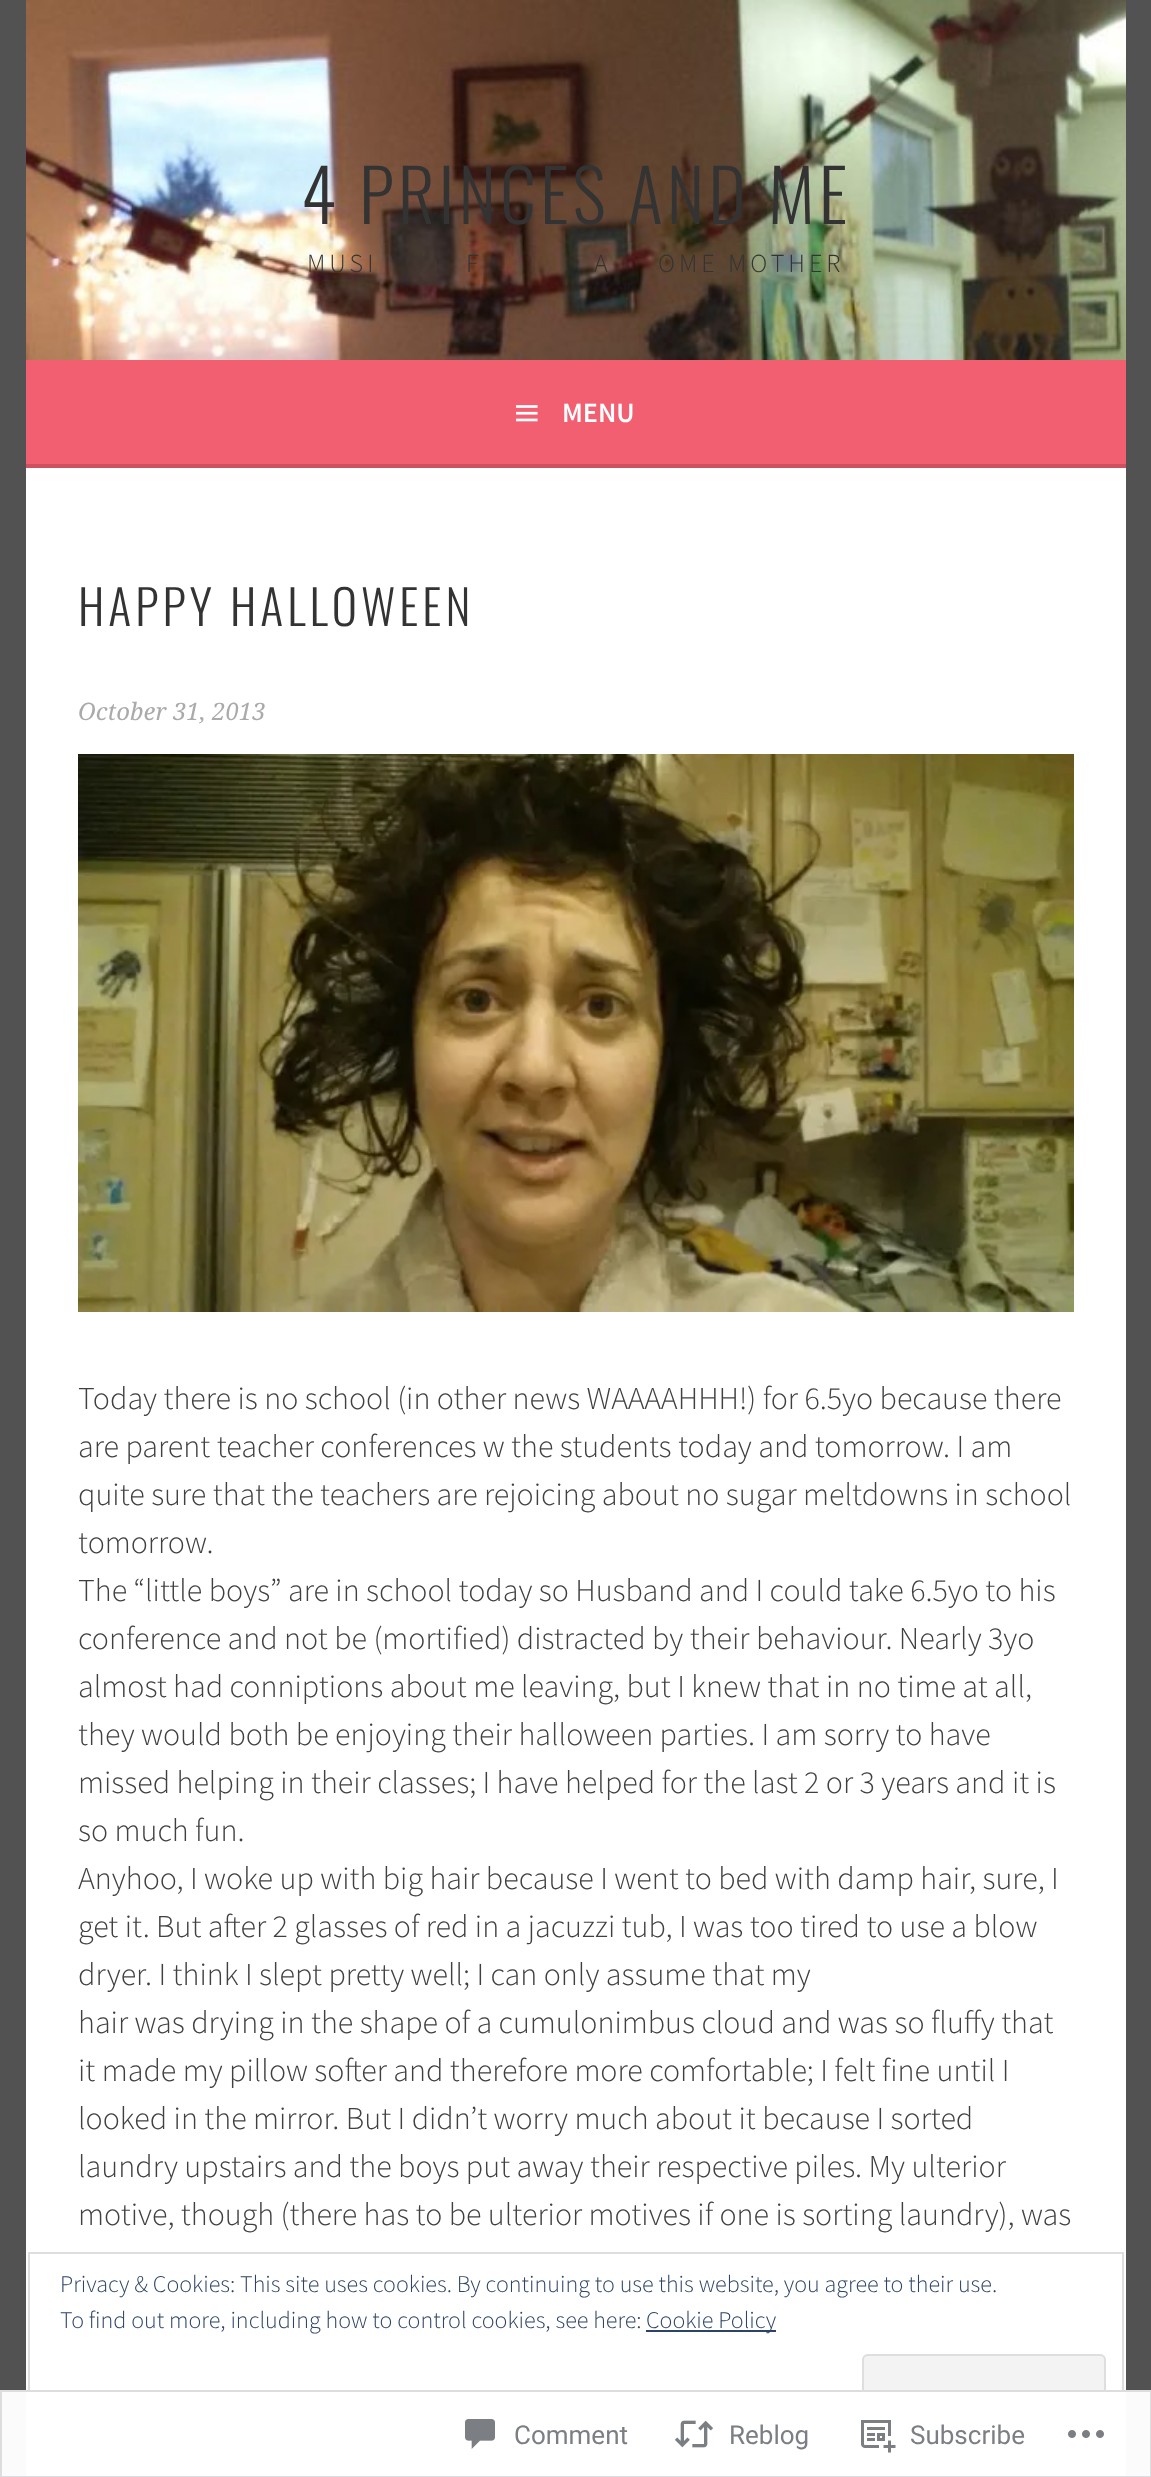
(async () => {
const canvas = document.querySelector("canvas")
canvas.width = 1151
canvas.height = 2477
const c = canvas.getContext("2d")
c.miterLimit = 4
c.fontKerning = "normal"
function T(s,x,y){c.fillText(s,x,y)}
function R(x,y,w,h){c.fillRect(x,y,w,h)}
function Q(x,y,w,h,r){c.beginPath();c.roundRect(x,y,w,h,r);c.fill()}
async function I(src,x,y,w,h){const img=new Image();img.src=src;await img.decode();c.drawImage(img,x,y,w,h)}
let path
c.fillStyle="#525252"
R(0,0,1151,2477)
await I("1.png",26,0,1100,360)
c.letterSpacing="4px"
c.font="300 72px Oswald"
c.fillStyle="#333"
T("4 PRINCES AND ME",301,224)
c.font="300 26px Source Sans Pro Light"
T("MUSI",307,272)
T("F",466,272)
T("A",594,272)
T("OME MOTHER",658,272)
c.fillStyle="#f25f70"
R(26,360,1100,104)
c.fillStyle="#ce515f"
R(26,464,1100,4)
await I("2.png",516,405,22,17)
c.letterSpacing="0px"
c.font="600 28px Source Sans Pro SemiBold"
c.fillStyle="#fff"
T("MENU",562,422)
R(26,468,1100,2009)
c.letterSpacing="4px"
c.font="300 48px Oswald"
c.fillStyle="#333"
T("HAPPY HALLOWEEN",78,626)
c.letterSpacing="0px"
c.font="italic 24px Droid Serif"
c.fillStyle="#aaa"
T("October 31, 2013",78,720)
await I("3.png",78,754,996,558)
c.font="300 32px Source Sans Pro Light"
c.fillStyle="#404040"
T("Today there is no school (in other news WAAAAHHH!) for 6.5yo because there",78,1409)
T("are parent teacher conferences w the students today and tomorrow. I am",78,1457)
T("quite sure that the teachers are rejoicing about no sugar meltdowns in school",78,1505)
T("tomorrow.",78,1553)
T("The “little boys” are in school today so Husband and I could take 6.5yo to his",78,1601)
T("conference and not be (mortified) distracted by their behaviour. Nearly 3yo",78,1649)
T("almost had conniptions about me leaving, but I knew that in no time at all,",78,1697)
T("they would both be enjoying their halloween parties. I am sorry to have",78,1745)
T("missed helping in their classes; I have helped for the last 2 or 3 years and it is",78,1793)
T("so much fun.",78,1841)
T("Anyhoo, I woke up with big hair because I went to bed with damp hair, sure, I",78,1889)
T("get it. But after 2 glasses of red in a jacuzzi tub, I was too tired to use a blow",78,1937)
T("dryer. I think I slept pretty well; I can only assume that my",78,1985)
T("hair was drying in the shape of a cumulonimbus cloud and was so fluffy that",78,2033)
T("it made my pillow softer and therefore more comfortable; I felt fine until I",78,2081)
T("looked in the mirror. But I didn’t worry much about it because I sorted",78,2129)
T("laundry upstairs and the boys put away their respective piles. My ulterior",78,2177)
T("motive, though (there has to be ulterior motives if one is sorting laundry), was",78,2225)
c.strokeStyle="#dedede"
c.lineWidth=2
c.strokeRect(29,2253,1094,196)
c.font="300 24px Source Sans Pro Light"
c.fillStyle="#2e4467"
T("Privacy & Cookies: This site uses cookies. By continuing to use this website, you agree to their use.",60,2292)
T("To find out more, including how to control cookies, see here:",60,2328)
R(646,2330,130,2)
T("Cookie Policy",646,2328)
c.fillStyle="#f3f3f3"
Q(862,2354,244,78,6)
c.fillStyle="#dbdbdb"
path = new Path2D("M864 2422v4c0 2 2 4 4 4h232c2 0 4-2 4-4v-4c0 2-2 4-4 4h-232c-2 0-4-2-4-4z")
c.fill(path)
c.beginPath()
c.roundRect(863,2355,242,76,5)
c.stroke()
c.fillStyle="#fffffffa"
R(0,2390,1151,87)
c.strokeStyle="#dcdcdefa"
c.strokeRect(1,2391,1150,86)
await I("4.png",465,2419,30,30)
c.font="26px Roboto"
c.fillStyle="#7b7f85"
T("Comment",514,2444)
await I("5.png",674,2420,40,28)
T("Reblog",729,2444)
await I("6.png",861,2420,35,33)
T("Subscribe",910,2444)
await I("7.png",1068,2430,36,8)
})()
